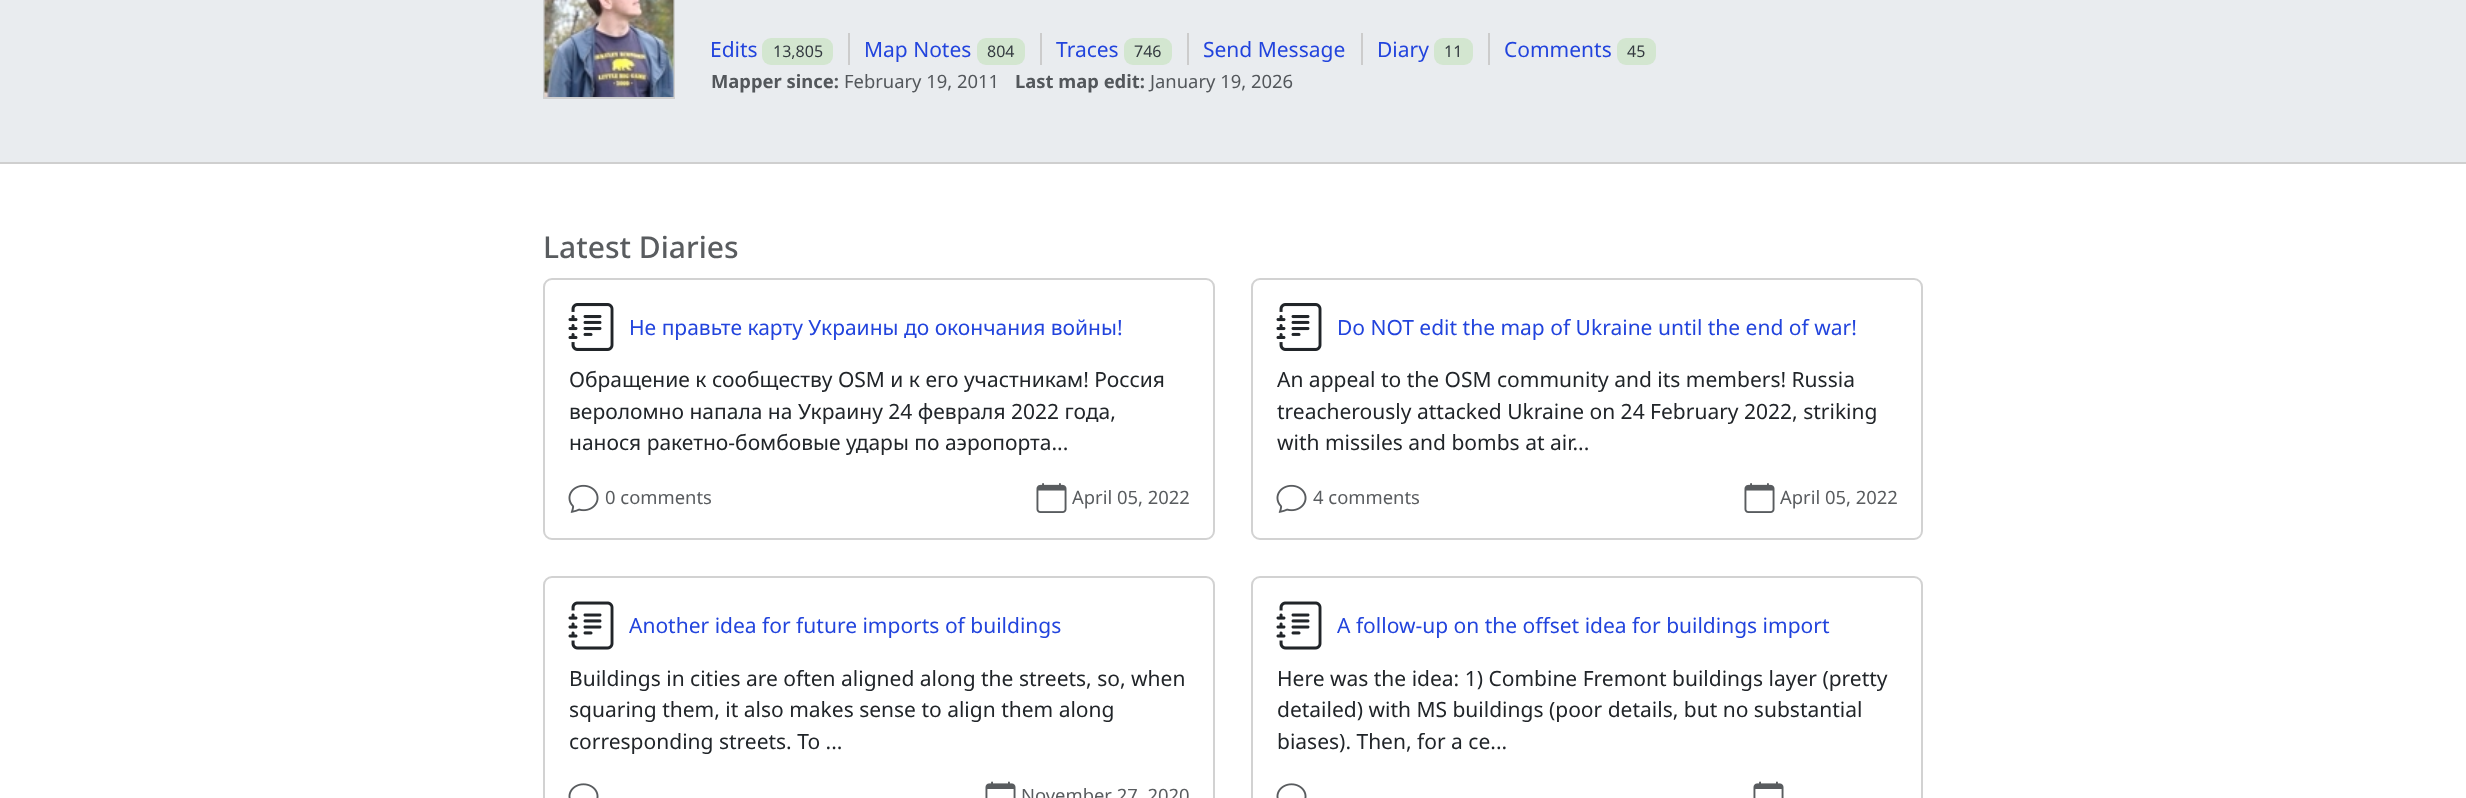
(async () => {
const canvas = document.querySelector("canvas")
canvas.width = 2466
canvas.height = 798
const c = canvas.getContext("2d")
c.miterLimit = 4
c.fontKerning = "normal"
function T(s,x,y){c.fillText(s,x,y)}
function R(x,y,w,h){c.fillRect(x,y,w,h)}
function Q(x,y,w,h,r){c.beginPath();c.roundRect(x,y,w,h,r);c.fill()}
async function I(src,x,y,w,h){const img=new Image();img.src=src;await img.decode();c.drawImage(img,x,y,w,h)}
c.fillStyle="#fff"
R(0,0,2466,798)
c.fillStyle="#e9ecef"
R(0,0,2466,162)
c.fillStyle="#cfcfcf"
R(0,162,2466,2)
c.strokeStyle="#cfcfcf"
c.lineWidth=2
c.strokeRect(544,-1,130,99)
await I("1.png",544,0,130,97)
c.font="21px Noto Sans"
c.fillStyle="#24d"
T("Edits",710,57)
c.fillStyle="#d3e6d0"
Q(762,38,71,27,9)
c.font="16px Noto Sans"
c.fillStyle="#343a40"
T("13,805",773,57)
c.fillStyle="#ccc"
R(848,33,2,32)
c.font="21px Noto Sans"
c.fillStyle="#24d"
T("Map Notes",864,57)
c.fillStyle="#d3e6d0"
Q(977,38,48,27,9)
c.font="16px Noto Sans"
c.fillStyle="#343a40"
T("804",987,57)
c.fillStyle="#ccc"
R(1040,33,2,32)
c.font="21px Noto Sans"
c.fillStyle="#24d"
T("Traces",1056,57)
c.fillStyle="#d3e6d0"
Q(1124,38,48,27,9)
c.font="16px Noto Sans"
c.fillStyle="#343a40"
T("746",1134,57)
c.fillStyle="#ccc"
R(1187,33,2,32)
c.font="21px Noto Sans"
c.fillStyle="#24d"
T("Send Message",1203,57)
c.fillStyle="#ccc"
R(1361,33,2,32)
c.fillStyle="#24d"
T("Diary",1377,57)
c.fillStyle="#d3e6d0"
Q(1434,38,39,27,9)
c.font="16px Noto Sans"
c.fillStyle="#343a40"
T("11",1444,57)
c.fillStyle="#ccc"
R(1488,33,2,32)
c.font="21px Noto Sans"
c.fillStyle="#24d"
T("Comments",1504,57)
c.fillStyle="#d3e6d0"
Q(1617,38,39,27,9)
c.font="16px Noto Sans"
c.fillStyle="#343a40"
T("45",1627,57)
c.font="bold 18.4px Noto Sans"
c.fillStyle="#53575b"
T("Mapper since:",711,88)
c.font="18.4px Noto Sans"
T("February 19, 2011",844,88)
c.font="bold 18.4px Noto Sans"
T("Last map edit:",1015,88)
c.font="18.4px Noto Sans"
T("January 19, 2026",1150,88)
c.font="500 30px Noto Sans"
c.fillStyle="#595c5f"
T("Latest Diaries",543,258)
c.beginPath()
c.roundRect(544,279,670,260,8)
c.strokeStyle="#d2d2d2"
c.stroke()
await I("2.png",568,303,46,48)
c.font="21px Noto Sans"
c.fillStyle="#24d"
T("Не правьте карту Украины до окончания войны!",629,335)
c.fillStyle="#212529"
T("Обращение к сообществу OSM и к его участникам! Россия",569,387)
T("вероломно напала на Украину 24 февраля 2022 года,",569,419)
T("нанося ракетно-бомбовые удары по аэропорта...",569,450)
await I("3.png",568,484,31,29)
c.font="18.4px Noto Sans"
c.fillStyle="#595c5f"
T("0 comments",605,504)
await I("4.png",1036,483,31,30)
T("April 05, 2022",1072,504)
c.beginPath()
c.roundRect(1252,279,670,260,8)
c.stroke()
await I("2.png",1276,303,46,48)
c.font="21px Noto Sans"
c.fillStyle="#24d"
T("Do NOT edit the map of Ukraine until the end of war!",1337,335)
c.fillStyle="#212529"
T("An appeal to the OSM community and its members! Russia",1277,387)
T("treacherously attacked Ukraine on 24 February 2022, striking",1277,419)
T("with missiles and bombs at air...",1277,450)
await I("3.png",1276,484,31,29)
c.font="18.4px Noto Sans"
c.fillStyle="#595c5f"
T("4 comments",1313,504)
await I("4.png",1744,483,31,30)
T("April 05, 2022",1780,504)
c.beginPath()
c.roundRect(544,577,670,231,8)
c.stroke()
await I("5.png",568,601,46,49)
c.font="21px Noto Sans"
c.fillStyle="#24d"
T("Another idea for future imports of buildings",629,633)
c.fillStyle="#212529"
T("Buildings in cities are often aligned along the streets, so, when",569,686)
T("squaring them, it also makes sense to align them along",569,717)
T("corresponding streets. To ...",569,749)
await I("6.png",568,783,31,15)
await I("7.png",985,781,31,17)
c.font="18.4px Noto Sans"
c.fillStyle="#595c5f"
T("November 27, 2020",1021,802)
c.beginPath()
c.roundRect(1252,577,670,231,8)
c.stroke()
await I("5.png",1276,601,46,49)
c.font="21px Noto Sans"
c.fillStyle="#24d"
T("A follow-up on the offset idea for buildings import",1337,633)
c.fillStyle="#212529"
T("Here was the idea: 1) Combine Fremont buildings layer (pretty",1277,686)
T("detailed) with MS buildings (poor details, but no substantial",1277,717)
T("biases). Then, for a ce...",1277,749)
await I("6.png",1276,783,31,15)
await I("7.png",1753,781,31,17)
})()
